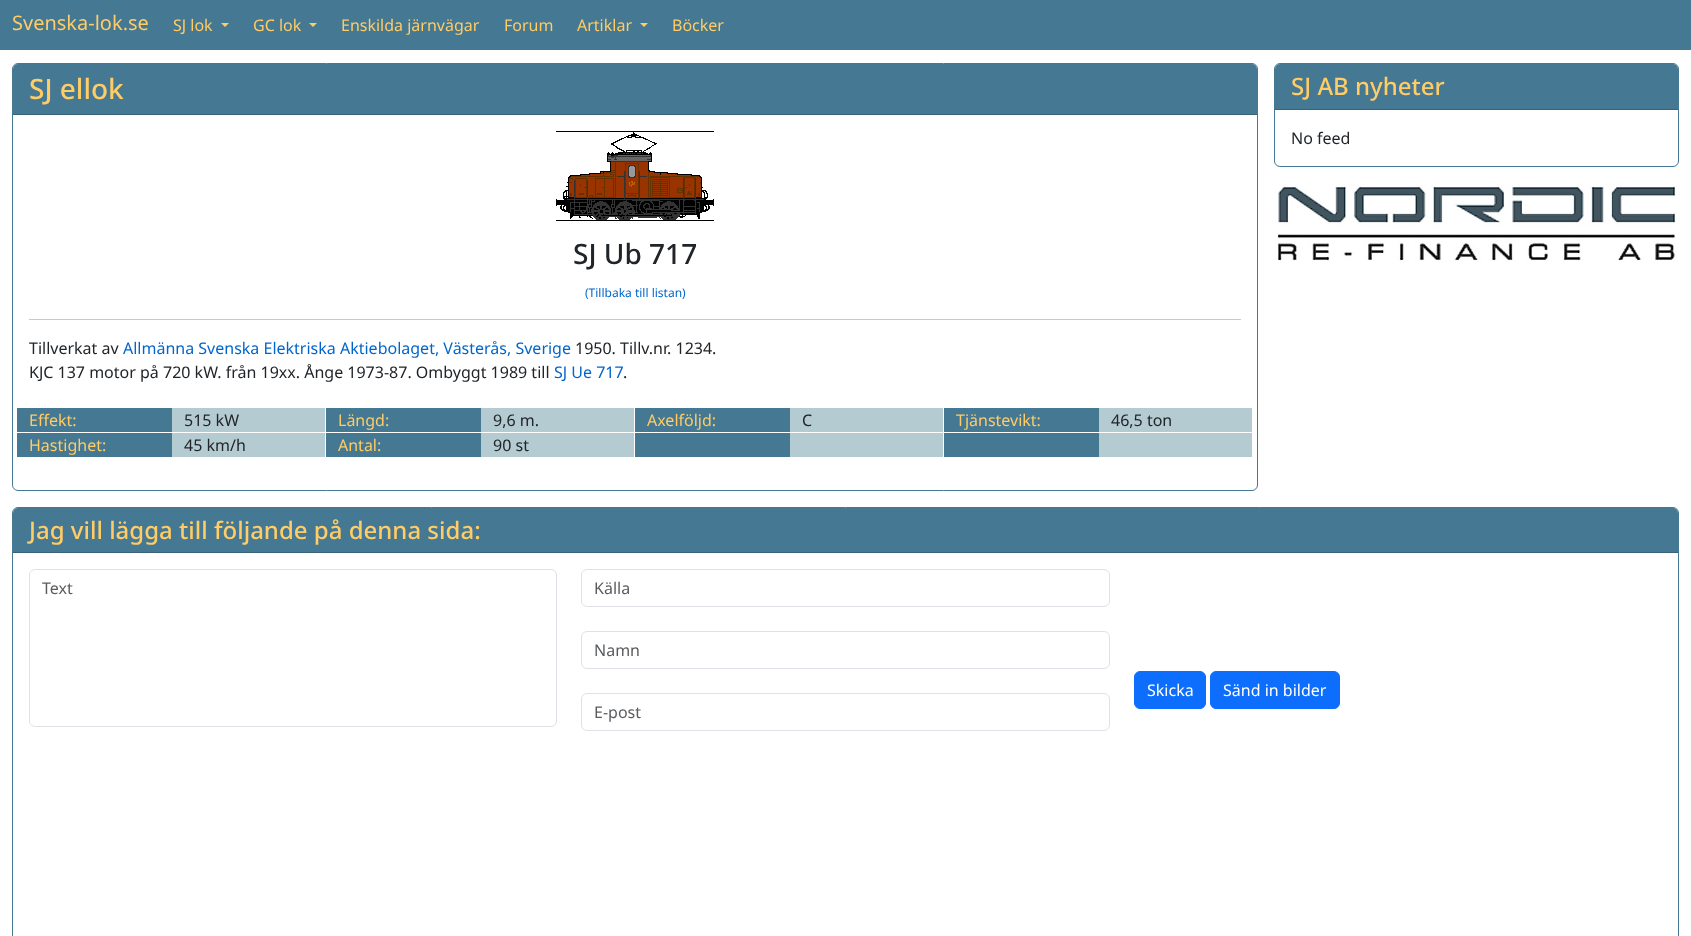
(async () => {
const canvas = document.querySelector("canvas")
canvas.width = 1691
canvas.height = 936
const c = canvas.getContext("2d")
c.miterLimit = 4
c.fontKerning = "normal"
function T(s,x,y){c.fillText(s,x,y)}
function R(x,y,w,h){c.fillRect(x,y,w,h)}
async function I(src,x,y,w,h){const img=new Image();img.src=src;await img.decode();c.drawImage(img,x,y,w,h)}
let path
c.fillStyle="#fff"
R(0,0,1691,936)
c.fillStyle="#457892"
R(0,0,1691,50)
c.font="20px Noto Sans"
c.fillStyle="#fc6"
T("Svenska-lok.se",12,30)
c.font="16px Noto Sans"
T("SJ lok",173,31)
path = new Path2D("M221 23h8l-4 4z")
c.fill(path)
T("GC lok",253,31)
path = new Path2D("M309 23h8l-4 4z")
c.fill(path)
T("Enskilda järnvägar",341,31)
T("Forum",504,31)
T("Artiklar",577,31)
path = new Path2D("M640 23h8l-4 4z")
c.fill(path)
T("Böcker",672,31)
c.beginPath()
c.roundRect(12.5,63.5,1245,427,5.5)
c.strokeStyle="#457892"
c.stroke()
c.fillStyle="#457892"
c.beginPath()
c.roundRect(13,64,1244,51,[5,5,0,0])
c.fill()
c.fillStyle="#396378"
R(13,114,1244,1)
c.font="500 28px Noto Sans"
c.fillStyle="#fc6"
T("SJ ellok",29,99)
await I("1.png",556,131,158,90)
c.fillStyle="#212529"
T("SJ Ub 717",573,264)
c.font="12px Noto Sans"
c.fillStyle="#06c"
T("(Tillbaka till listan)",585,297)
c.fillStyle="#c8c9ca"
R(29,319,1212,1)
c.font="16px Noto Sans"
c.fillStyle="#212529"
T("Tillverkat av",29,354)
c.fillStyle="#06c"
T("Allmänna Svenska Elektriska Aktiebolaget, Västerås, Sverige",123,354)
c.fillStyle="#212529"
T("1950. Tillv.nr. 1234.",575,354)
T("KJC 137 motor på 720 kW. från 19xx. Ånge 1973-87. Ombyggt 1989 till",29,378)
c.fillStyle="#06c"
T("SJ Ue 717",554,378)
c.fillStyle="#212529"
T(".",623,378)
c.fillStyle="#457892"
R(17,408,155,24)
c.fillStyle="#fc6"
T("Effekt:",29,426)
c.fillStyle="#b4cbd1"
R(172,408,153,24)
c.fillStyle="#212529"
T("515 kW",184,426)
c.fillStyle="#457892"
R(326,408,155,24)
c.fillStyle="#fc6"
T("Längd:",338,426)
c.fillStyle="#b4cbd1"
R(481,408,153,24)
c.fillStyle="#212529"
T("9,6 m.",493,426)
c.fillStyle="#457892"
R(635,408,155,24)
c.fillStyle="#fc6"
T("Axelföljd:",647,426)
c.fillStyle="#b4cbd1"
R(790,408,153,24)
c.fillStyle="#212529"
T("C",802,426)
c.fillStyle="#457892"
R(944,408,155,24)
c.fillStyle="#fc6"
T("Tjänstevikt:",956,426)
c.fillStyle="#b4cbd1"
R(1099,408,153,24)
c.fillStyle="#212529"
T("46,5 ton",1111,426)
c.fillStyle="#457892"
R(17,433,155,24)
c.fillStyle="#fc6"
T("Hastighet:",29,451)
c.fillStyle="#b4cbd1"
R(172,433,153,24)
c.fillStyle="#212529"
T("45 km/h",184,451)
c.fillStyle="#457892"
R(326,433,155,24)
c.fillStyle="#fc6"
T("Antal:",338,451)
c.fillStyle="#b4cbd1"
R(481,433,153,24)
c.fillStyle="#212529"
T("90 st",493,451)
c.fillStyle="#457892"
R(635,433,155,24)
c.fillStyle="#b4cbd1"
R(790,433,153,24)
c.fillStyle="#457892"
R(944,433,155,24)
c.fillStyle="#b4cbd1"
R(1099,433,153,24)
c.beginPath()
c.roundRect(1274.5,63.5,404,103,5.5)
c.stroke()
c.fillStyle="#457892"
c.beginPath()
c.roundRect(1275,64,403,46,[5,5,0,0])
c.fill()
c.fillStyle="#396378"
R(1275,109,403,1)
c.font="500 24px Noto Sans"
c.fillStyle="#fc6"
T("SJ AB nyheter",1291,95)
c.font="16px Noto Sans"
c.fillStyle="#212529"
T("No feed",1291,144)
await I("2.png",1277,183,400,78)
c.beginPath()
c.roundRect(12.5,507.5,1666,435,5.5)
c.stroke()
c.fillStyle="#457892"
c.beginPath()
c.roundRect(13,508,1665,45,[5,5,0,0])
c.fill()
c.fillStyle="#396378"
R(13,552,1665,1)
c.font="500 24px Noto Sans"
c.fillStyle="#fc6"
T("Jag vill lägga till följande på denna sida:",29,539)
c.beginPath()
c.roundRect(29.5,569.5,527,157,5.5)
c.strokeStyle="#dee2e6"
c.stroke()
c.font="16px Noto Sans"
c.fillStyle="#595c5f"
T("Text",42,594)
c.beginPath()
c.roundRect(581.5,569.5,528,37,5.5)
c.stroke()
T("Källa",594,594)
c.beginPath()
c.roundRect(581.5,631.5,528,37,5.5)
c.stroke()
T("Namn",594,656)
c.beginPath()
c.roundRect(581.5,693.5,528,37,5.5)
c.stroke()
T("E-post",594,718)
c.fillStyle="#0d6efd"
c.beginPath()
c.roundRect(1134.5,671.5,71,37,5.5)
c.fill()
c.strokeStyle="#0d6efd"
c.stroke()
c.fillStyle="#fff"
T("Skicka",1147,696)
c.fillStyle="#0d6efd"
c.beginPath()
c.roundRect(1210.5,671.5,129,37,5.5)
c.fill()
c.stroke()
c.fillStyle="#fff"
T("Sänd in bilder",1223,696)
})()
